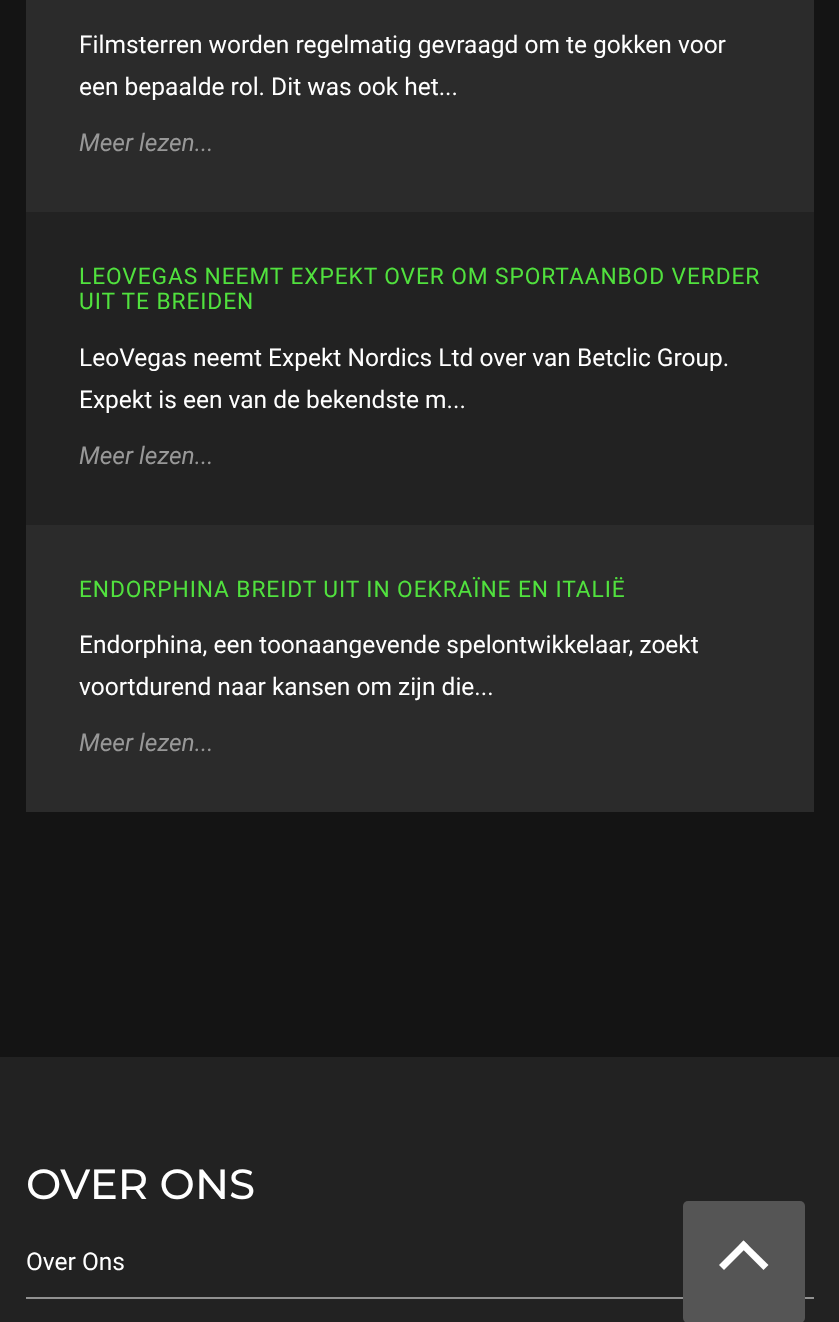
(async () => {
const canvas = document.querySelector("canvas")
canvas.width = 839
canvas.height = 1322
const c = canvas.getContext("2d")
c.miterLimit = 4
c.fontKerning = "normal"
function T(s,x,y){c.fillText(s,x,y)}
function R(x,y,w,h){c.fillRect(x,y,w,h)}
function Q(x,y,w,h,r){c.beginPath();c.roundRect(x,y,w,h,r);c.fill()}
let path
c.fillStyle="#141414"
R(0,0,839,1322)
c.fillStyle="#2b2b2b"
R(26,0,788,212)
c.font="24.5px Roboto"
c.fillStyle="#fff"
T("Filmsterren worden regelmatig gevraagd om te gokken voor",79,53)
T("een bepaalde rol. Dit was ook het...",79,95)
c.font="italic 24.5px Roboto"
c.fillStyle="#989898"
T("Meer lezen...",79,151)
c.fillStyle="#222"
R(26,212,788,313)
c.letterSpacing="0.9px"
c.font="22.75px Roboto"
c.fillStyle="#51e13e"
T("LEOVEGAS NEEMT EXPEKT OVER OM SPORTAANBOD VERDER",79,284)
T("UIT TE BREIDEN",79,309)
c.letterSpacing="0px"
c.font="24.5px Roboto"
c.fillStyle="#fff"
T("LeoVegas neemt Expekt Nordics Ltd over van Betclic Group.",79,366)
T("Expekt is een van de bekendste m...",79,408)
c.font="italic 24.5px Roboto"
c.fillStyle="#989898"
T("Meer lezen...",79,464)
c.fillStyle="#2b2b2b"
R(26,525,788,287)
c.letterSpacing="0.9px"
c.font="22.75px Roboto"
c.fillStyle="#51e13e"
T("ENDORPHINA BREIDT UIT IN OEKRAÏNE EN ITALIË",79,597)
c.letterSpacing="0px"
c.font="24.5px Roboto"
c.fillStyle="#fff"
T("Endorphina, een toonaangevende spelontwikkelaar, zoekt",79,653)
T("voortdurend naar kansen om zijn die...",79,695)
c.font="italic 24.5px Roboto"
c.fillStyle="#989898"
T("Meer lezen...",79,751)
c.fillStyle="#222"
R(0,1057,839,265)
c.font="500 42px Montserrat"
c.fillStyle="#fff"
T("OVER ONS",26,1199)
c.fillStyle="#919191"
R(26,1297,788,2)
c.font="24.5px Roboto"
c.fillStyle="#fff"
T("Over Ons",26,1270)
c.fillStyle="#555"
Q(683,1201,122,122,5)
c.fillStyle="#fff"
path = new Path2D("M719 1265l24.5-24.5l5 5l-24.5 24.5z")
c.fill(path)
path = new Path2D("M739 1245.5l4.5-5l25 24.5l-5 5z")
c.fill(path)
})()
